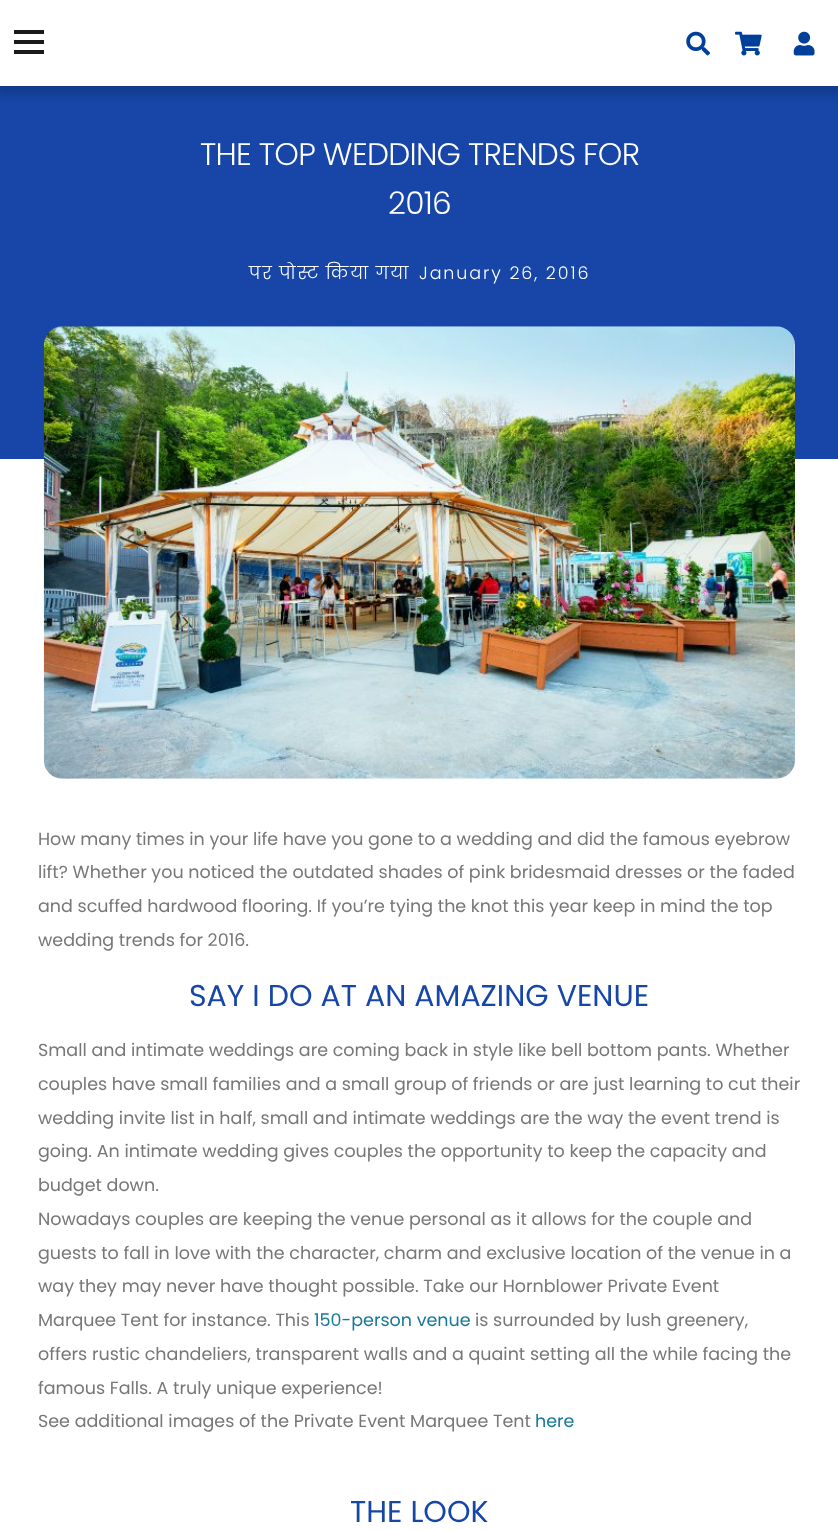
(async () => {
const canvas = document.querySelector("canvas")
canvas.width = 838
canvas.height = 1530
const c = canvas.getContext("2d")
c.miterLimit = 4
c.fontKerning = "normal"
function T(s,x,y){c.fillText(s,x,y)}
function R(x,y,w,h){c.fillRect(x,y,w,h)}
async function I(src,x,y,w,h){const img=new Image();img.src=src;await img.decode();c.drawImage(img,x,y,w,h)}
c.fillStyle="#fff"
R(0,0,838,1530)
c.fillStyle="#1746a8"
R(0,86,838,373)
c.save()
c.beginPath()
c.rect(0,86,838,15)
c.clip()
c.fillStyle="#00000033"
c.filter="blur(6px)"
c.beginPath()
c.rect(-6,-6,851,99)
c.fill()
c.filter="none"
c.restore()
c.fillStyle="#1a1a1a"
R(14,40,30,4)
R(14,30,30,4)
R(14,50,30,4)
await I("1.png",686,31,24,25)
await I("2.png",735,31,27,25)
await I("3.png",793,31,22,25)
c.letterSpacing="-0.75px"
c.font="300 31.25px Poppins"
c.fillStyle="#fff"
T("THE TOP WEDDING TRENDS FOR",200,165)
T("2016",388,214)
c.letterSpacing="1.9px"
c.wordSpacing="-1px"
c.font="300 17.5px Poppins"
T("पर पोस्ट किया गया",249,279)
c.wordSpacing="0px"
T("January 26, 2016",419,279)
await I("4.png",43,326,752,453)
c.letterSpacing="0px"
c.font="17.5px Poppins"
c.fillStyle="#777"
T("How many times in your life have you gone to a wedding and did the famous eyebrow",38,845)
T("lift? Whether you noticed the outdated shades of pink bridesmaid dresses or the faded",38,878)
T("and scuffed hardwood flooring. If you’re tying the knot this year keep in mind the top",38,912)
T("wedding trends for 2016.",38,946)
c.font="30px Poppins"
c.fillStyle="#1646a8"
T("SAY I DO AT AN AMAZING VENUE",189,1006)
c.font="17.5px Poppins"
c.fillStyle="#777"
T("Small and intimate weddings are coming back in style like bell bottom pants. Whether",38,1056)
T("couples have small families and a small group of friends or are just learning to cut their",38,1090)
T("wedding invite list in half, small and intimate weddings are the way the event trend is",38,1124)
T("going. An intimate wedding gives couples the opportunity to keep the capacity and",38,1157)
T("budget down.",38,1191)
T("Nowadays couples are keeping the venue personal as it allows for the couple and",38,1225)
T("guests to fall in love with the character, charm and exclusive location of the venue in a",38,1259)
T("way they may never have thought possible. Take our Hornblower Private Event",38,1292)
T("Marquee Tent for instance. This",38,1326)
c.fillStyle="#177998"
T("150-person venue",314,1326)
c.fillStyle="#777"
T("is surrounded by lush greenery,",475,1326)
T("offers rustic chandeliers, transparent walls and a quaint setting all the while facing the",38,1360)
T("famous Falls. A truly unique experience!",38,1394)
T("See additional images of the Private Event Marquee Tent",38,1427)
c.fillStyle="#177998"
T("here",535,1427)
c.font="30px Poppins"
c.fillStyle="#1646a8"
T("THE LOOK",350,1522)
})()
